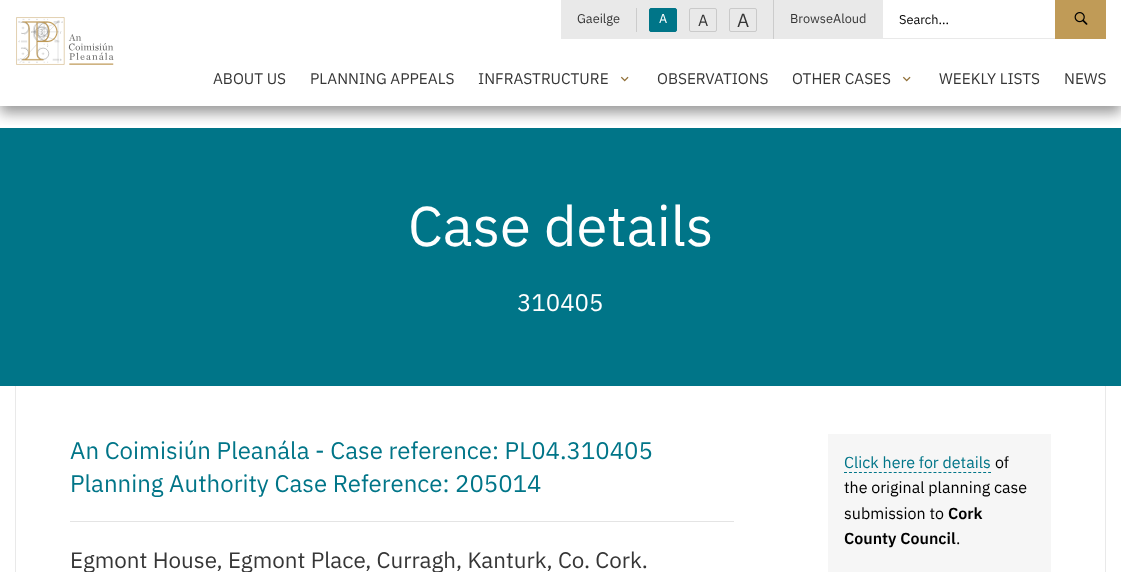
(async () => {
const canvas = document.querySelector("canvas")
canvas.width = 1121
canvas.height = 572
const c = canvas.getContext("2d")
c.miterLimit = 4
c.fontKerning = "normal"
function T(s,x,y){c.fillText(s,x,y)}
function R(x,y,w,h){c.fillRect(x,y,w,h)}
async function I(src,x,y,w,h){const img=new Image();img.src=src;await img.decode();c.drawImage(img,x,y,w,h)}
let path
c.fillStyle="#fff"
R(0,0,1121,572)
c.fillStyle="#007588"
R(0,128,1121,258)
c.save()
c.beginPath()
c.rect(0,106,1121,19)
c.clip()
c.fillStyle="#32323280"
c.filter="blur(7px)"
c.beginPath()
c.rect(0,7,1121,106)
c.fill()
c.filter="none"
c.restore()
await I("1.png",16,17,98,48)
c.fillStyle="#e9e9e9"
R(561,0,322,39)
c.font="12.75px IBM Plex Sans"
c.fillStyle="#363636"
T("Gaeilge",577,23)
c.fillStyle="#ccc"
R(636,8,1,24)
c.fillStyle="#007588"
c.beginPath()
c.roundRect(649.5,8.5,27,23,1.5)
c.fill()
c.strokeStyle="#007588"
c.stroke()
c.fillStyle="#fff"
T("A",659,23)
c.beginPath()
c.roundRect(689.5,8.5,27,23,1.5)
c.strokeStyle="#cacaca"
c.stroke()
c.font="16px IBM Plex Sans"
c.fillStyle="#363636"
T("A",698,26)
c.beginPath()
c.roundRect(729.5,8.5,27,23,1.5)
c.stroke()
c.font="19px IBM Plex Sans"
T("A",737,27)
c.fillStyle="#ccc"
R(773,0,1,39)
c.font="12.75px IBM Plex Sans"
c.fillStyle="#363636"
T("BrowseAloud",790,23)
c.fillStyle="#e9e9e9"
R(883,38,172,1)
c.fillStyle="#000"
T("Search...",899,24)
c.fillStyle="#c09b57"
R(1055,0,51,39)
await I("2.png",1074,12,14,13)
c.font="15.4px IBM Plex Sans"
c.fillStyle="#363636"
T("ABOUT US",213,84)
T("PLANNING APPEALS",310,84)
T("INFRASTRUCTURE",478,84)
await I("3.png",620,76,9,6)
T("OBSERVATIONS",657,84)
T("OTHER CASES",792,84)
await I("3.png",902,76,9,6)
T("WEEKLY LISTS",939,84)
T("NEWS",1064,84)
c.font="56px IBM Plex Sans"
c.fillStyle="#fff"
T("Case details",408,246)
c.font="24px IBM Plex Sans"
T("310405",517,311)
c.fillStyle="#e9e9e9"
R(1105,386,1,186)
R(15,386,1,186)
c.fillStyle="#007588"
T("An Coimisiún Pleanála - Case reference: PL04.310405",70,459)
T("Planning Authority Case Reference: 205014",70,492)
c.fillStyle="#e4e4e4"
R(70,521,664,1)
c.font="22.4px IBM Plex Sans"
c.fillStyle="#363636"
T("Egmont House, Egmont Place, Curragh, Kanturk, Co. Cork.",70,568)
c.fillStyle="#f6f6f6"
R(828,434,223,138)
c.font="16px IBM Plex Sans"
c.fillStyle="#007588"
T("Click here for details",844,468)
path = new Path2D("M844 472.5h147")
c.strokeStyle="#007588"
c.setLineDash([3,1.97])
c.stroke(path)
c.fillStyle="#000"
T("of",995,468)
T("the original planning case",844,493)
T("submission to",844,519)
c.font="600 16px IBM Plex Sans"
T("Cork",948,519)
T("County Council",844,544)
c.font="16px IBM Plex Sans"
T(".",956,544)
})()
